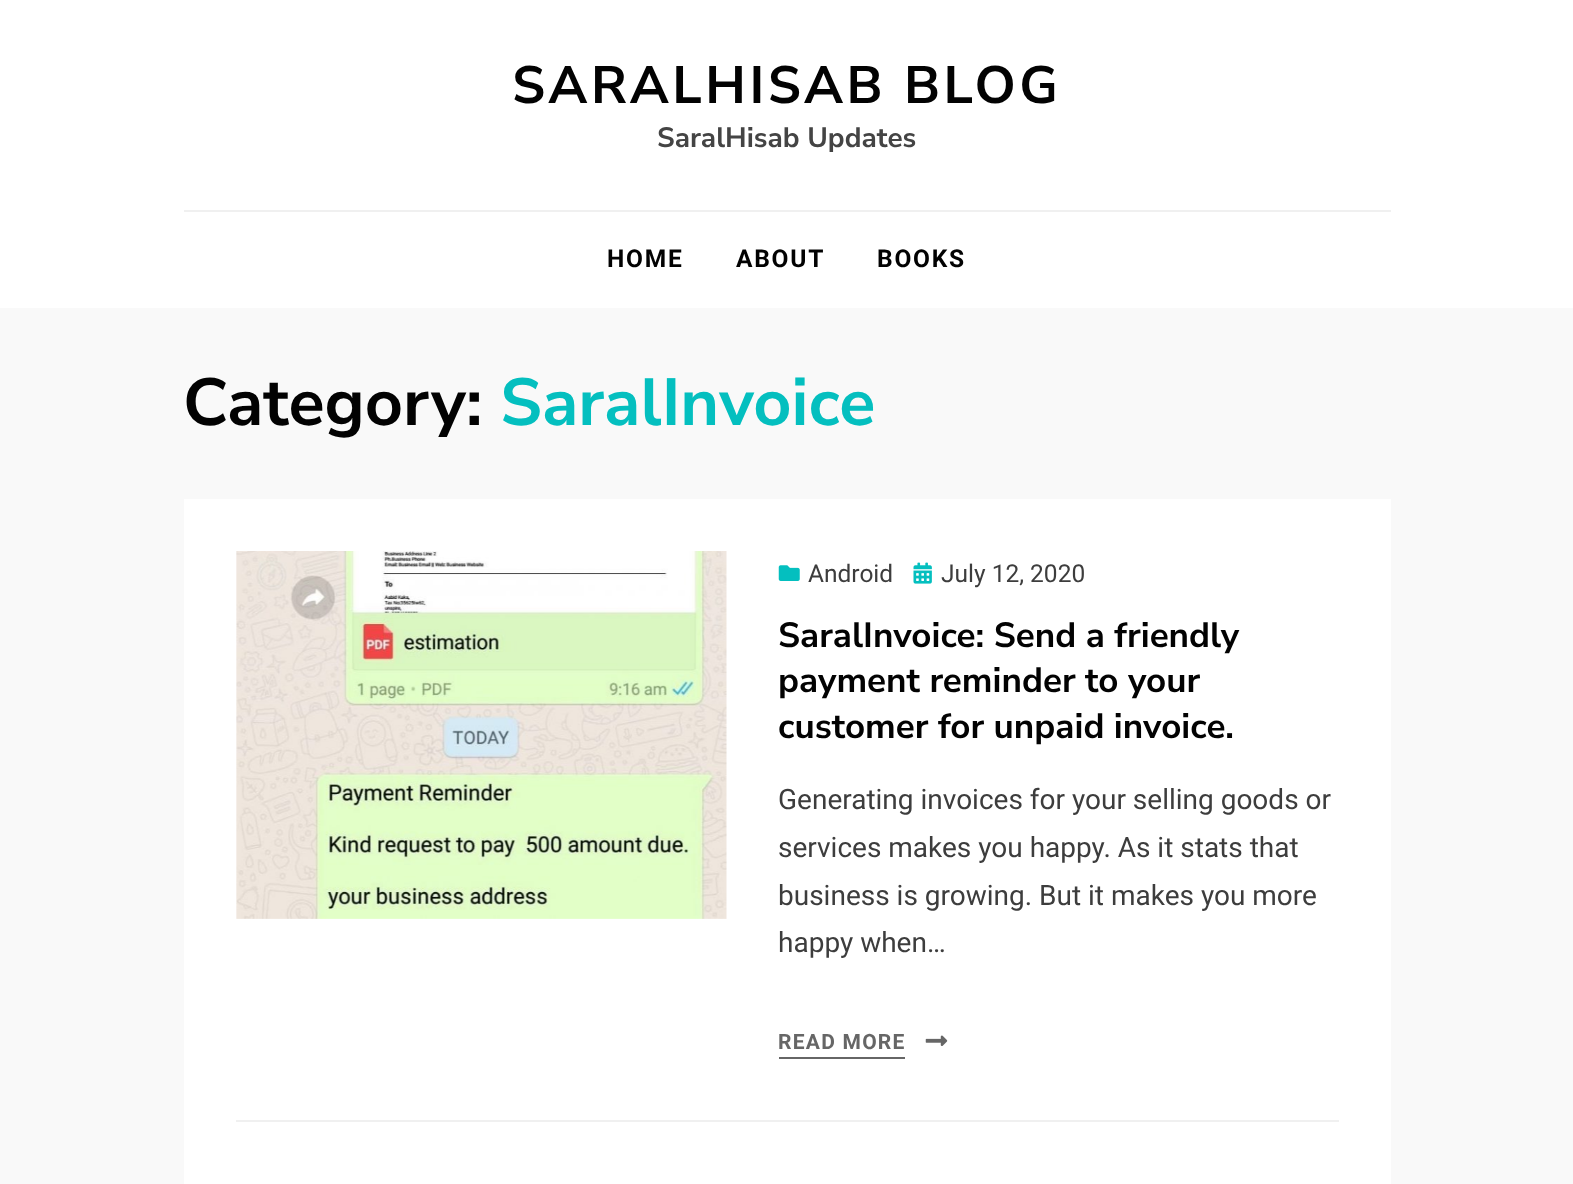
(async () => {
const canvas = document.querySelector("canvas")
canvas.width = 1573
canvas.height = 1184
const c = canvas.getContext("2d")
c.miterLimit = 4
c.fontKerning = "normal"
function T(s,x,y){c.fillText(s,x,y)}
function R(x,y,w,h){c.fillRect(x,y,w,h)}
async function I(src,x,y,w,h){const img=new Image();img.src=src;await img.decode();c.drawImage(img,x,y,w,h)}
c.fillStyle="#f9f9f9"
R(0,0,1573,1184)
c.fillStyle="#fff"
R(0,0,1573,308)
c.letterSpacing="3.5px"
c.font="bold 52.5px Nunito Sans"
c.fillStyle="#020202"
T("SARALHISAB BLOG",512,103)
c.letterSpacing="0px"
c.font="bold 28px Nunito Sans"
c.fillStyle="#444"
T("SaralHisab Updates",657,147)
c.fillStyle="#f0f0f0"
R(184,210,1207,2)
c.letterSpacing="1.75px"
c.font="bold 24.5px Roboto"
c.fillStyle="#020202"
T("HOME",607,267)
T("ABOUT",736,267)
T("BOOKS",877,267)
c.letterSpacing="0px"
c.font="bold 66.5px Nunito Sans"
T("Category:",183,425)
c.fillStyle="#04bfbf"
T("SaralInvoice",500,425)
c.fillStyle="#fff"
R(184,499,1207,685)
await I("1.png",236,551,491,368)
await I("2.png",778,565,22,16)
c.font="24.5px Roboto"
c.fillStyle="#3d3d3d"
T("Android",808,582)
await I("3.png",913,562,19,22)
T("July 12, 2020",941,582)
c.font="bold 35px Nunito Sans"
c.fillStyle="#020202"
T("SaralInvoice: Send a friendly",778,647)
T("payment reminder to your",778,692)
T("customer for unpaid invoice.",778,738)
c.font="28px Roboto"
c.fillStyle="#3d3d3d"
T("Generating invoices for your selling goods or",778,809)
T("services makes you happy. As it stats that",778,857)
T("business is growing. But it makes you more",778,905)
T("happy when…",778,952)
c.letterSpacing="1.25px"
c.font="bold 21px Roboto"
c.fillStyle="#666"
T("READ MORE",778,1049)
await I("4.png",925,1035,23,11)
R(779,1057,126,2)
c.fillStyle="#f0f0f0"
R(236,1120,1103,2)
})()
